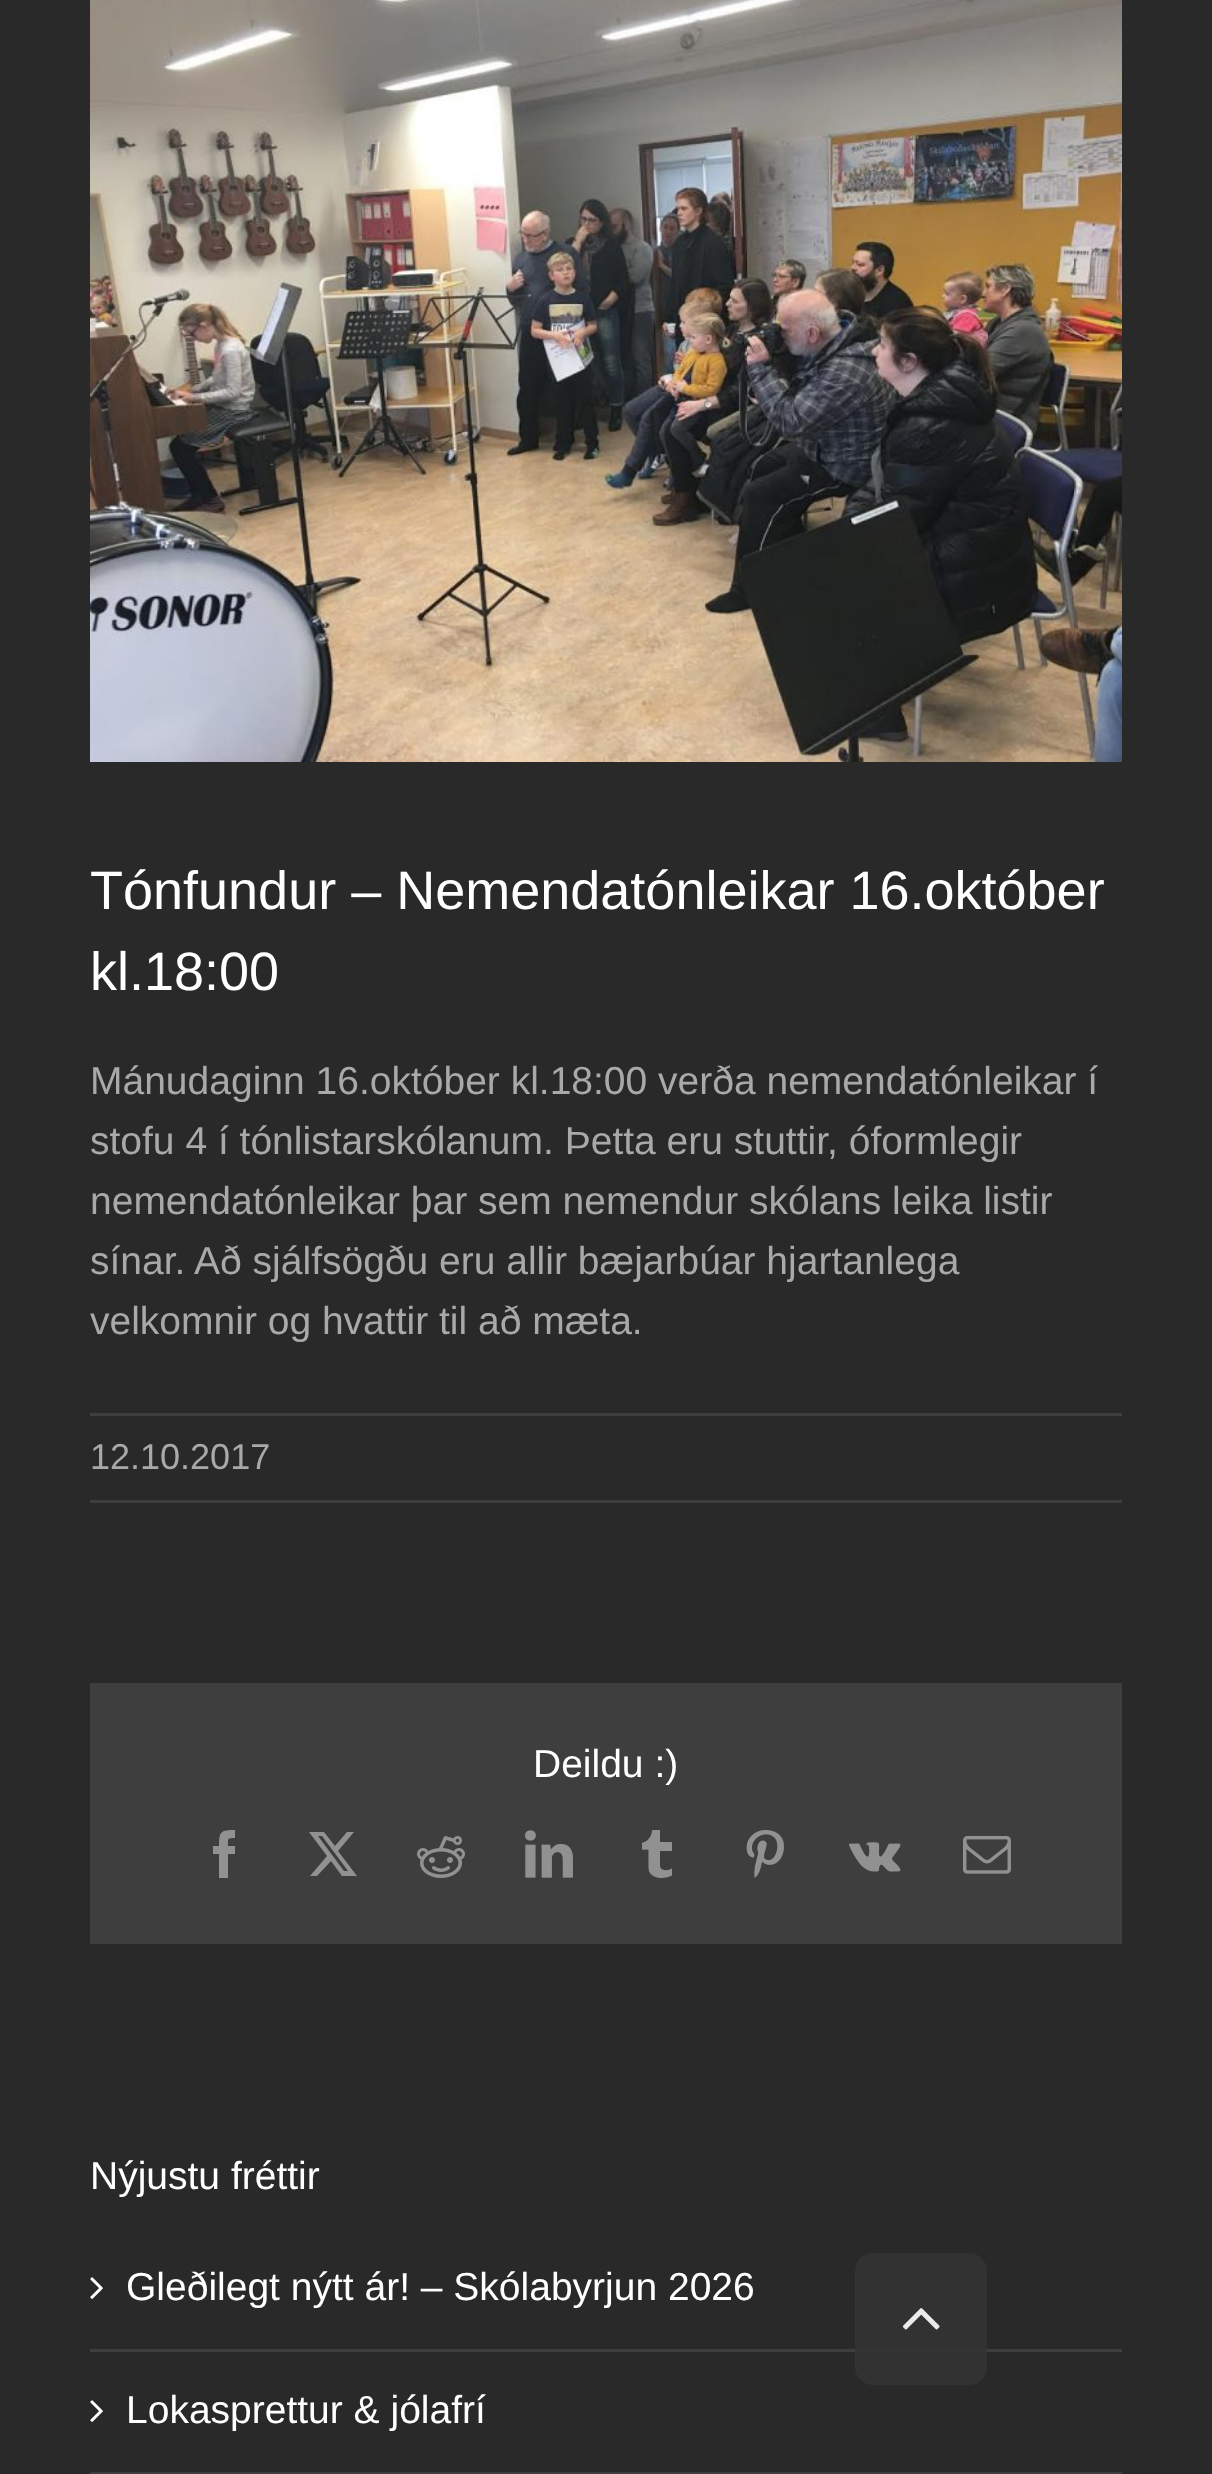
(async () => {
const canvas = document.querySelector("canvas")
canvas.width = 1212
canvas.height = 2474
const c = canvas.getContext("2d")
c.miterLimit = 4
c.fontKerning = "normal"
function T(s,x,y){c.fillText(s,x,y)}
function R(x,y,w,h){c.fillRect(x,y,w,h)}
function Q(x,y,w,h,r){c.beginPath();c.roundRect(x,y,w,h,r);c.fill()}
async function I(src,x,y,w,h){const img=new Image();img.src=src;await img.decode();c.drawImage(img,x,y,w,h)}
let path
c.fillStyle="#29292a"
R(0,0,1212,2474)
await I("1.png",90,0,1032,762)
c.font="54px Liberation Sans"
c.fillStyle="#fff"
T("Tónfundur – Nemendatónleikar 16.október",90,909)
T("kl.18:00",90,990)
c.font="39px Liberation Sans"
c.fillStyle="#aaa9a9"
T("Mánudaginn 16.október kl.18:00 verða nemendatónleikar í",90,1094)
T("stofu 4 í tónlistarskólanum. Þetta eru stuttir, óformlegir",90,1154)
T("nemendatónleikar þar sem nemendur skólans leika listir",90,1214)
T("sínar. Að sjálfsögðu eru allir bæjarbúar hjartanlega",90,1274)
T("velkomnir og hvattir til að mæta.",90,1334)
c.fillStyle="#3e3e3e"
R(90,1413,1032,3)
R(90,1500,1032,3)
c.font="36px Liberation Sans"
c.fillStyle="#aaa9a9"
T("12.10.2017",90,1469)
c.fillStyle="#3e3e3e"
R(90,1683,1032,261)
c.font="39px Liberation Sans"
c.fillStyle="#fff"
T("Deildu :)",533,1777)
c.fillStyle="#919191"
path = new Path2D("M228 1878h-9v-24h-6v-8h6c0-15 2-16 16-16v8c-8 0-7 0-7 8h7v8h-7z")
c.fill(path)
path = new Path2D("M347 1832h7l-16 19l19 25h-15l-11-15l-14 15h-7l17-20l-18-24h15l11 14zm-3 39h4l-26-35h-4z")
c.fill(path)
await I("2.png",417,1836,48,42)
await I("3.png",525,1830,48,48)
await I("4.png",642,1830,30,48)
await I("5.png",746,1830,38,48)
await I("6.png",849,1842,52,30)
await I("7.png",963,1836,48,38)
c.fillStyle="#fff"
T("Nýjustu fréttir",90,2189)
c.fillStyle="#3e3e3e"
R(90,2349,1032,3)
await I("8.png",90,2277,13,22)
c.fillStyle="#fff"
T("Gleðilegt nýtt ár! – Skólabyrjun 2026",126,2300)
c.fillStyle="#3e3e3e"
R(90,2472,1032,2)
await I("8.png",90,2400,13,22)
c.fillStyle="#fff"
T("Lokasprettur & jólafrí",126,2423)
c.fillStyle="#333333e6"
Q(855,2253,132,132,18)
await I("9.png",902,2308,38,22)
})()
